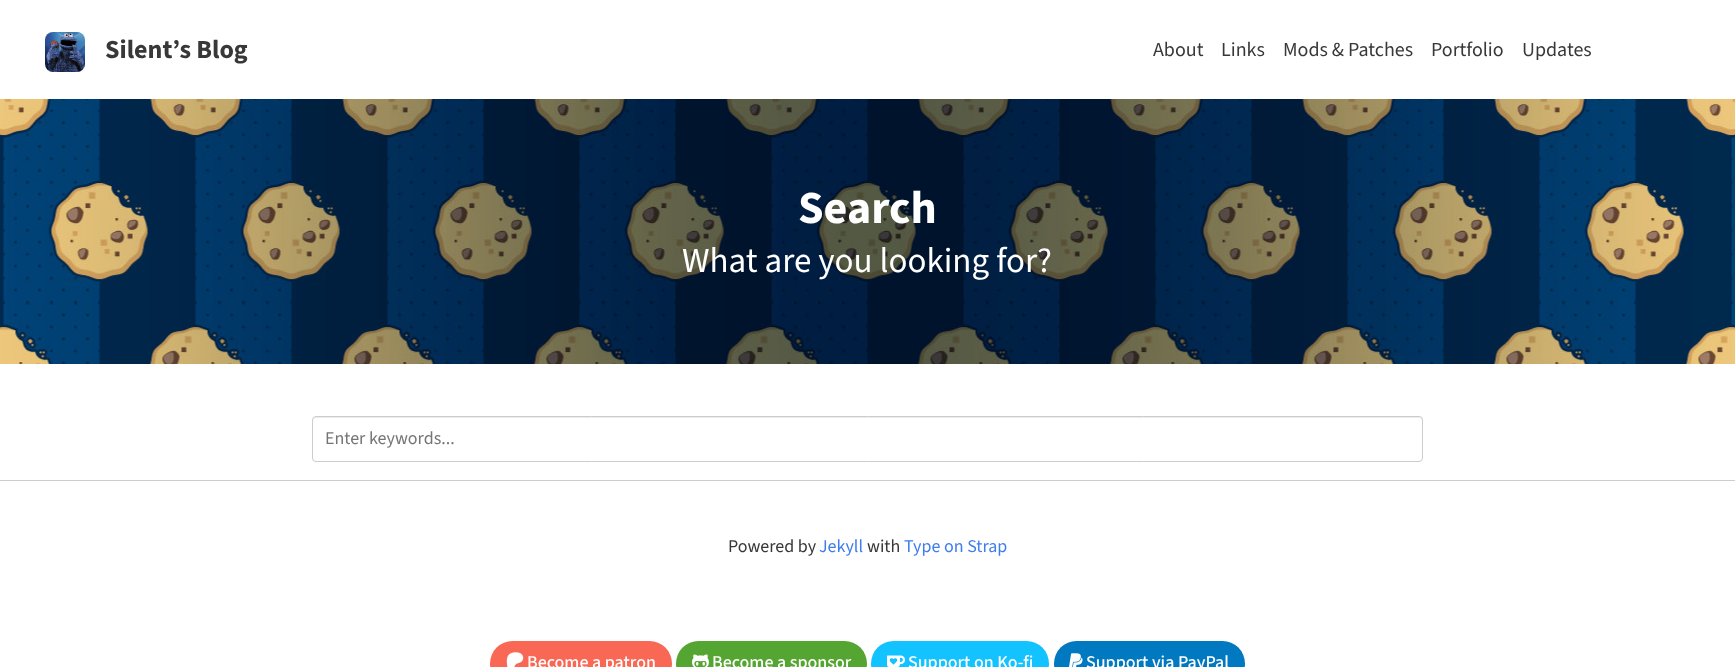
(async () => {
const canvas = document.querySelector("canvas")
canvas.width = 1735
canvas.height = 667
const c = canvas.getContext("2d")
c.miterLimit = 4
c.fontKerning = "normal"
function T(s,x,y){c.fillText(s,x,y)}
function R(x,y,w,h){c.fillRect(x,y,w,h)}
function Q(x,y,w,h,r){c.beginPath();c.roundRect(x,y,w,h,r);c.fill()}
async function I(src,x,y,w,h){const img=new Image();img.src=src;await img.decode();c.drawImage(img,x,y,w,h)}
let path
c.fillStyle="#fff"
R(0,0,1735,667)
await I("1.png",45,32,40,40)
c.font="bold 26px 'Source Sans 3'"
c.fillStyle="#383838"
T("Silent’s Blog",105,58)
c.font="20px 'Source Sans 3'"
T("About",1153,56)
T("Links",1221,56)
T("Mods & Patches",1283,56)
T("Portfolio",1431,56)
T("Updates",1522,56)
c.fillStyle="#cdcdcd"
R(0,480,1735,1)
await I("2.png",0,99,1735,265)
c.font="bold 46px 'Source Sans 3'"
c.fillStyle="#fff"
T("Search",798,223)
c.font="35px 'Source Sans 3'"
T("What are you looking for?",682,272)
c.fillStyle="#ececec"
path = new Path2D("M316 418h1103c2 0 3 1 3 3v-1c0-2-1-3-3-3h-1103c-2 0-3 1-3 3v1c0-2 1-3 3-3z")
c.fill(path)
c.beginPath()
c.roundRect(312.5,416.5,1110,45,3.5)
c.strokeStyle="#ccc"
c.stroke()
c.font="18px 'Source Sans 3'"
c.fillStyle="#757575"
T("Enter keywords...",325,444)
c.fillStyle="#383838"
T("Powered by",728,552)
c.fillStyle="#3d7dec"
T("Jekyll",819,552)
c.fillStyle="#383838"
T("with",867,552)
c.fillStyle="#3d7dec"
T("Type on Strap",904,552)
c.fillStyle="#f96854"
Q(490,641,182,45,22.5)
await I("3.png",506,652,18,15)
c.font="500 18px 'Source Sans 3'"
c.fillStyle="#fff"
T("Become a patron",527,668)
c.fillStyle="#55a532"
Q(676,641,191,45,22.5)
await I("4.png",692,654,17,13)
c.fillStyle="#fff"
T("Become a sponsor",712,668)
c.fillStyle="#13c3ff"
Q(871,641,178,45,22.5)
await I("5.png",887,655,18,12)
c.fillStyle="#fff"
T("Support on Ko-fi",908,668)
c.fillStyle="#0079c1"
Q(1054,641,191,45,22.5)
await I("6.png",1069,653,14,14)
c.fillStyle="#fff"
T("Support via PayPal",1086,668)
})()
